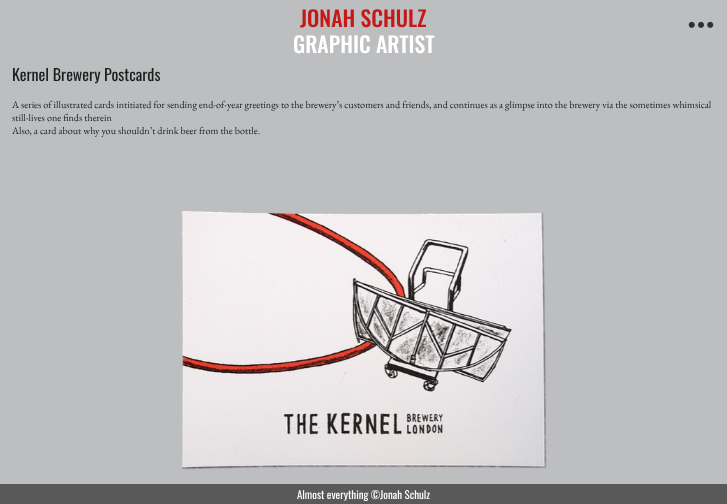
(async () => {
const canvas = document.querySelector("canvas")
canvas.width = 727
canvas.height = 504
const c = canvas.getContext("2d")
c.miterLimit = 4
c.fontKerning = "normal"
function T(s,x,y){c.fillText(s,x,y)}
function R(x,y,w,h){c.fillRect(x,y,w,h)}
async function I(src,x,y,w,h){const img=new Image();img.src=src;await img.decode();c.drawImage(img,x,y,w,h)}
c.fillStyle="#bdbec0"
R(0,0,727,504)
c.font="500 21.75px Oswald"
c.fillStyle="#c71818"
T("JONAH SCHULZ",300,27)
c.fillStyle="#fff"
T("GRAPHIC ARTIST",293,53)
c.font="16px Oswald"
c.fillStyle="#1c1d1d"
T("Kernel Brewery Postcards",12,81)
c.font="10.15px EB Garamond"
T("A series of illustrated cards intitiated for sending end-of-year greetings to the brewery’s customers and friends, and continues as a glimpse into the brewery via the sometimes whimsical",12,108)
T("still-lives one finds therein",12,121)
T("Also, a card about why you shouldn’t drink beer from the bottle.",12,134)
await I("1.png",181,210,366,260)
c.fillStyle="#595959"
R(0,484,727,20)
c.font="10.9px Oswald"
c.fillStyle="#fff"
T("Almost everything ©Jonah Schulz",297,499)
await I("2.png",688,21,26,7)
})()
